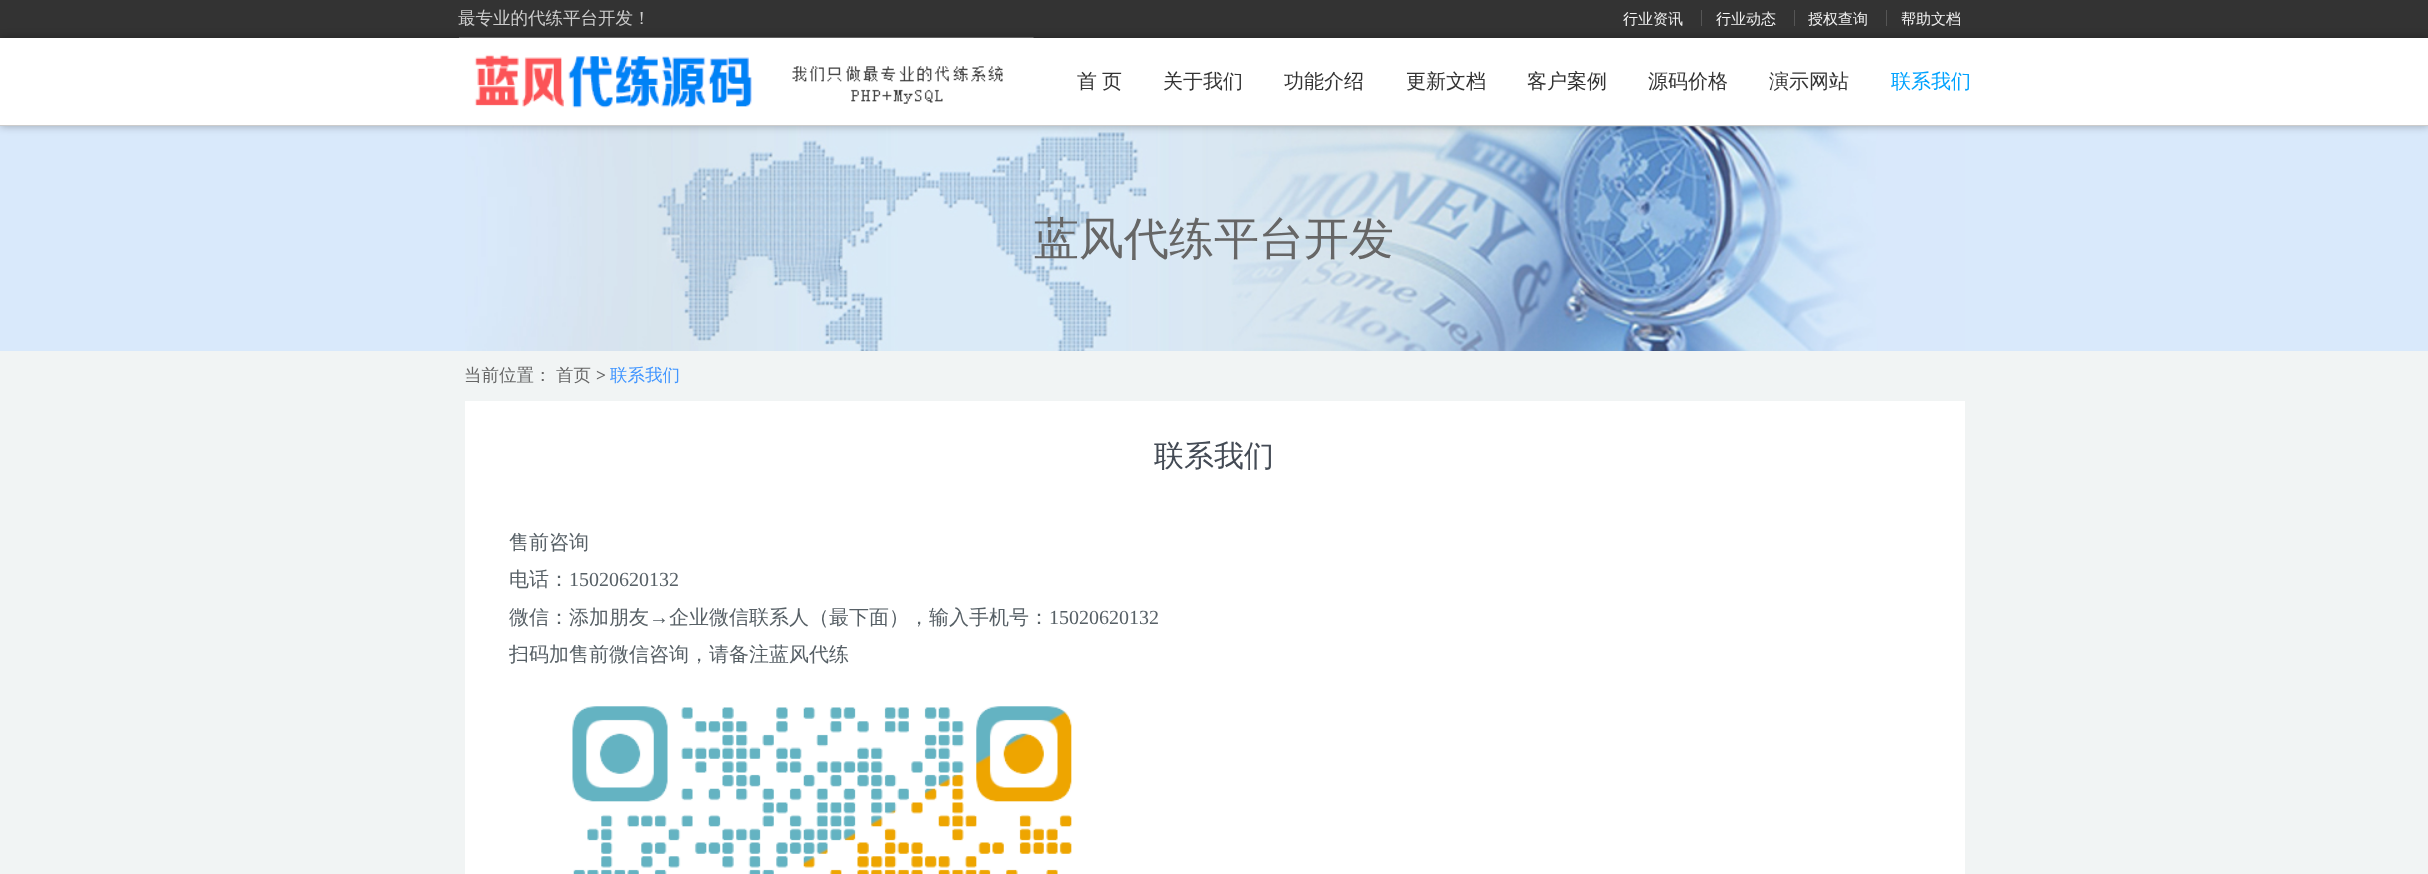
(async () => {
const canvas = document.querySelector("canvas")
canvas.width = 2428
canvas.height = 874
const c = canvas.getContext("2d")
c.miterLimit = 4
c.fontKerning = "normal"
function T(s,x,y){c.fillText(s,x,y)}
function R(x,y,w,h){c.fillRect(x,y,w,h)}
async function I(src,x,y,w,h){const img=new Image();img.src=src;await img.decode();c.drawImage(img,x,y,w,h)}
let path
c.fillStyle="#fff"
R(0,0,2428,874)
c.fillStyle="#333"
R(0,0,2428,38)
c.font="500 17.5px WenQuanYi Zen Hei"
c.fillStyle="#ccc"
T("最专业的代练平台开发！",458,24)
c.font="500 15px WenQuanYi Zen Hei"
c.fillStyle="#f2f2f2"
T("行业资讯",1623,24)
c.fillStyle="#555"
R(1701,10,1,16)
c.fillStyle="#f2f2f2"
T("行业动态",1716,24)
c.fillStyle="#555"
R(1794,10,1,16)
c.fillStyle="#f2f2f2"
T("授权查询",1808,24)
c.fillStyle="#555"
R(1886,10,1,16)
c.fillStyle="#f2f2f2"
T("帮助文档",1901,24)
c.fillStyle="#d9e9fb"
R(0,126,2428,225)
await I("2.png",465,126,1500,225)
c.save()
path = new Path2D("M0 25h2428v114h-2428zm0 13h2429v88h-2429z")
c.clip(path,"evenodd")
c.fillStyle="#0000004d"
c.filter="blur(4px)"
c.beginPath()
c.rect(0,38,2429,88)
c.fill()
c.filter="none"
c.restore()
c.fillStyle="#ccc"
R(0,125,2428,1)
await I("1.png",459,37,575,71)
c.wordSpacing="-1px"
c.font="500 20px WenQuanYi Zen Hei"
c.fillStyle="#333"
T("首 页",1077,88)
c.wordSpacing="0px"
T("关于我们",1163,88)
T("功能介绍",1284,88)
T("更新文档",1406,88)
T("客户案例",1527,88)
T("源码价格",1648,88)
T("演示网站",1769,88)
c.fillStyle="#00a2ff"
T("联系我们",1891,88)
c.font="500 45px WenQuanYi Zen Hei"
c.fillStyle="#666"
T("蓝风代练平台开发",1034,254)
c.fillStyle="#f1f4f4"
R(0,351,2428,523)
c.font="500 17.5px WenQuanYi Zen Hei"
c.fillStyle="#666"
T("当前位置：",464,381)
T("首页",556,381)
c.font="bold 17.5px Liberation Serif"
T(">",596,381)
c.font="500 17.5px WenQuanYi Zen Hei"
c.fillStyle="#4095ff"
T("联系我们",610,381)
c.fillStyle="#fff"
R(465,401,1500,473)
c.font="500 30px WenQuanYi Zen Hei"
c.fillStyle="#434a54"
T("联系我们",1154,466)
c.font="500 20px WenQuanYi Zen Hei"
c.fillStyle="#576066"
T("售前咨询",509,549)
T("电话：",509,586)
c.font="20px Liberation Serif"
T("15020620132",569,586)
c.font="500 20px WenQuanYi Zen Hei"
T("微信：添加朋友",509,624)
c.font="20px Liberation Serif"
T("→",649,624)
c.font="500 20px WenQuanYi Zen Hei"
T("企业微信联系人（最下面），输入手机号：",669,624)
c.font="20px Liberation Serif"
T("15020620132",1049,624)
c.font="500 20px WenQuanYi Zen Hei"
T("扫码加售前微信咨询，请备注蓝风代练",509,661)
await I("3.png",572,706,500,168)
})()
